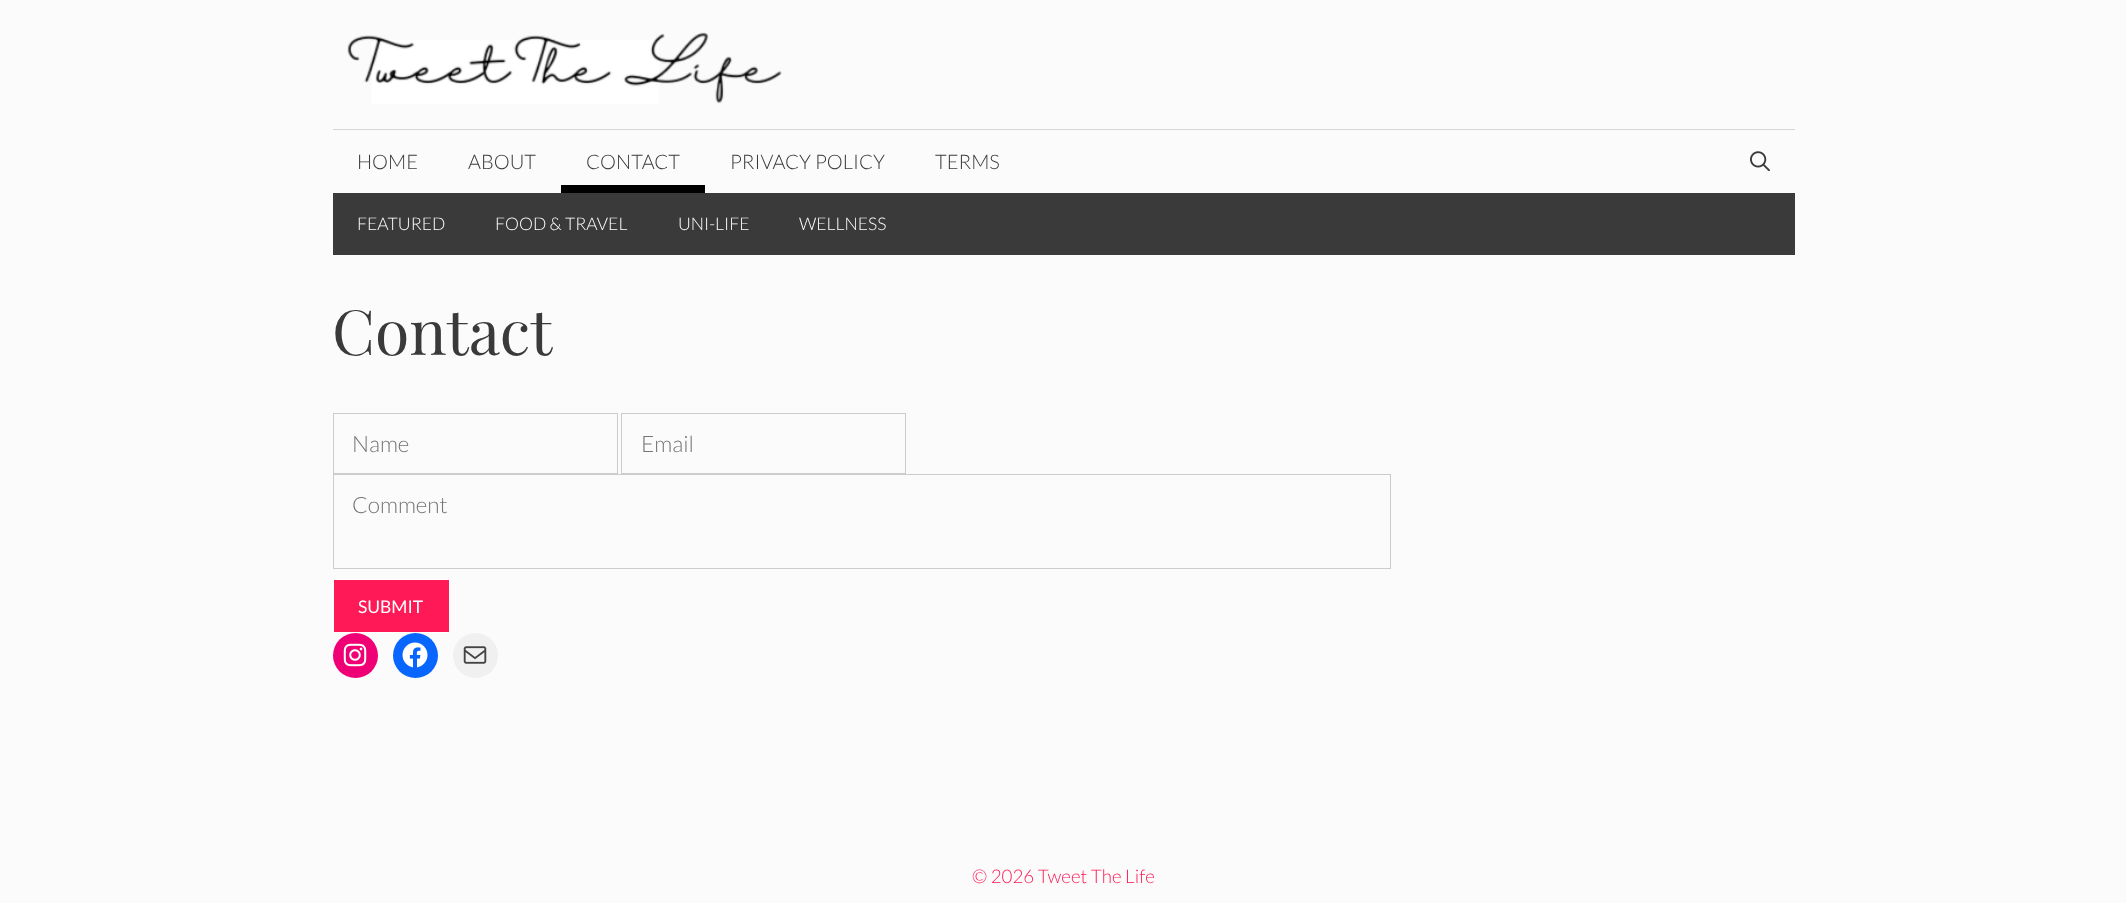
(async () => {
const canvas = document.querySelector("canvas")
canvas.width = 2126
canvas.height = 903
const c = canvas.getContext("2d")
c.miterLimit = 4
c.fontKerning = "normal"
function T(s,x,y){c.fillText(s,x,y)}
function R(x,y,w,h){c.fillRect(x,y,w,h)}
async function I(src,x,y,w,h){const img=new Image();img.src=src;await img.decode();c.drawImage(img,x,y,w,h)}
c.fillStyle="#fbfbfb"
R(0,0,2126,903)
await I("1.png",347,32,435,72)
c.fillStyle="#d4d7d8"
R(333,129,1462,1)
c.font="300 20px Lato"
c.fillStyle="#3a3a3a"
T("HOME",357,169)
T("ABOUT",468,169)
T("CONTACT",586,169)
c.fillStyle="#000"
R(561,185,144,8)
c.fillStyle="#3a3a3a"
T("PRIVACY POLICY",730,169)
T("TERMS",935,169)
await I("2.png",1750,151,20,20)
R(333,193,1462,62)
c.font="300 17.5px Lato"
c.fillStyle="#fff"
T("FEATURED",357,230)
T("FOOD & TRAVEL",495,230)
T("UNI-LIFE",678,230)
T("WELLNESS",799,230)
c.font="62.5px Playfair Display"
c.fillStyle="#3a3a3a"
T("Contact",332,355)
c.strokeStyle="#ccc"
c.strokeRect(333.5,413.5,284,60)
c.font="300 22.5px Lato"
c.fillStyle="#757575"
T("Name",352,452)
c.strokeRect(621.5,413.5,284,60)
T("Email",641,452)
c.strokeRect(333.5,474.5,1057,94)
T("Comment",352,513)
c.fillStyle="#ff1956"
c.beginPath()
c.rect(333.5,579.5,116,53)
c.fill()
c.strokeStyle="#fff"
c.stroke()
c.font="17.5px Lato"
c.fillStyle="#fff"
T("SUBMIT",358,613)
c.fillStyle="#f00075"
c.beginPath()
c.arc(355.5,655.5,22.5,0,7)
c.fill()
await I("3.png",343,643,24,24)
c.fillStyle="#0866ff"
c.beginPath()
c.arc(415.5,655.5,22.5,0,7)
c.fill()
await I("4.png",402,642,26,26)
c.fillStyle="#f0f0f0"
c.beginPath()
c.arc(475.5,655.5,22.5,0,7)
c.fill()
await I("5.png",463,646,24,18)
c.font="300 18.75px Lato"
c.fillStyle="#ff1956"
T("© 2026 Tweet The Life",972,883)
})()
